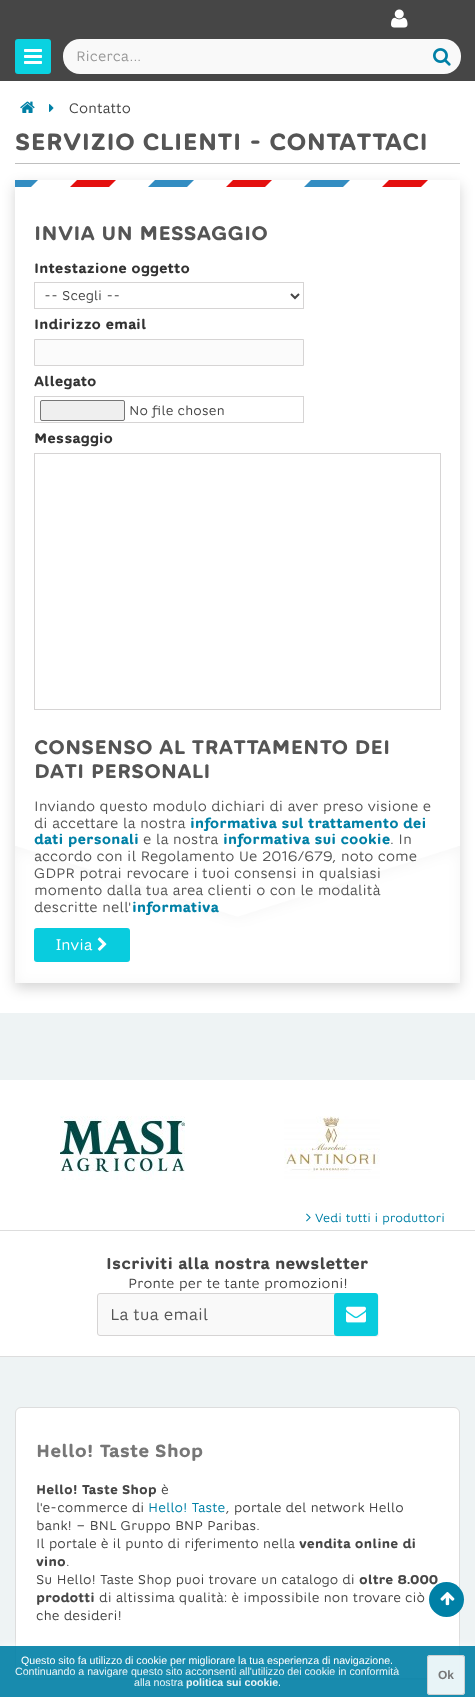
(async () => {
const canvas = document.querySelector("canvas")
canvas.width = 475
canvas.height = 1697
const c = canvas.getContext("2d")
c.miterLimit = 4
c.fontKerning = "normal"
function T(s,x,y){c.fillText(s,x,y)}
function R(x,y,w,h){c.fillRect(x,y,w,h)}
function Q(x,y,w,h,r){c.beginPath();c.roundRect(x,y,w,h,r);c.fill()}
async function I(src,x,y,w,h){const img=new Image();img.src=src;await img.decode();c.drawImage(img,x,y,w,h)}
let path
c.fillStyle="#eef3f4"
R(0,0,475,1697)
c.fillStyle="#464646"
R(0,0,475,81)
c.fillStyle="#0ad2e1"
Q(15,39,36,35,3)
await I("1.png",24,49,18,15)
await I("2.png",391,9,17,19)
c.fillStyle="#f9f9f9"
Q(63,39,398,35,17)
c.font="14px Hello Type"
c.fillStyle="#999"
T("Ricerca...",76,61)
await I("3.png",433,48,18,18)
c.fillStyle="#fff"
R(0,81,475,932)
await I("4.png",20,101,15,12)
await I("5.png",49,104,5,8)
c.fillStyle="#464646"
T("Contatto",69,113)
c.fillStyle="#bfbfbf"
R(15,163,445,1)
c.font="bold 24px Hello Type"
c.fillStyle="#555"
T("SERVIZIO CLIENTI - CONTATTACI",15,150)
c.save()
path = new Path2D("M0 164h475v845h-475zm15 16h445v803h-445z")
c.clip(path,"evenodd")
c.fillStyle="#0000002b"
c.filter="blur(6.5px)"
c.beginPath()
c.rect(15,185,445,803)
c.fill()
c.filter="none"
c.restore()
await I("6.png",15,180,413,7)
await I("7.png",15,846,445,137)
c.font="bold 20px Hello Type"
T("INVIA UN MESSAGGIO",34,240)
c.font="bold 14px Hello Type"
c.fillStyle="#333"
T("Intestazione oggetto",34,273)
c.strokeStyle="#d6d4d4"
c.strokeRect(34.5,282.5,269,26)
path = new Path2D("M291 294l4 4l4-4")
c.strokeStyle="#464646"
c.lineWidth=2
c.stroke(path)
c.font="13px Hello Type"
c.fillStyle="#464646"
T("-- Scegli --",44,300)
c.font="bold 14px Hello Type"
c.fillStyle="#333"
T("Indirizzo email",34,329)
c.fillStyle="#fbfbfb"
c.beginPath()
c.rect(34.5,339.5,269,26)
c.fill()
c.strokeStyle="#d6d4d4"
c.lineWidth=1
c.stroke()
c.fillStyle="#333"
T("Allegato",34,386)
c.strokeRect(34.5,396.5,269,26)
c.fillStyle="#efefef"
c.beginPath()
c.roundRect(40.5,400.5,84,20,1.5)
c.fill()
c.strokeStyle="#767676"
c.stroke()
c.font="13px Hello Type"
c.fillStyle="#464646"
T("No file chosen",129,415)
c.font="bold 14px Hello Type"
c.fillStyle="#333"
T("Messaggio",34,443)
c.strokeStyle="#d6d4d4"
c.strokeRect(34.5,453.5,406,256)
c.font="bold 20px Hello Type"
c.fillStyle="#555"
T("CONSENSO AL TRATTAMENTO DEI",34,754)
T("DATI PERSONALI",34,778)
c.font="14px Hello Type"
T("Inviando questo modulo dichiari di aver preso visione e",34,811)
T("di accettare la nostra",34,828)
c.font="bold 14px Hello Type"
c.fillStyle="#0080a6"
T("informativa sul trattamento dei",190,828)
T("dati personali",34,844)
c.font="14px Hello Type"
c.fillStyle="#555"
T("e la nostra",143,844)
c.font="bold 14px Hello Type"
c.fillStyle="#0080a6"
T("informativa sui cookie",223,844)
c.font="14px Hello Type"
c.fillStyle="#555"
T(". In",390,844)
T("accordo con il Regolamento Ue 2016/679, noto come",34,861)
T("GDPR potrai revocare i tuoi consensi in qualsiasi",34,878)
T("momento dalla tua area clienti o con le modalità",34,895)
T("descritte nell'",34,912)
c.font="bold 14px Hello Type"
c.fillStyle="#0080a6"
T("informativa",132,912)
c.fillStyle="#09ccde"
Q(34,928,96,34,3)
c.font="15px Noto Sans"
c.fillStyle="#fff"
T("I",56,950)
c.font="15px Hello Type"
T("nvia",61,950)
await I("8.png",97,937,10,14)
R(0,1080,475,150)
await I("9.png",60,1116,125,64)
await I("10.png",284,1116,96,63)
await I("11.png",306,1213,5,9)
c.font="11.9px Hello Type"
c.fillStyle="#0080a6"
T("Vedi tutti i produttori",315,1222)
c.fillStyle="#fff"
R(0,1231,475,125)
c.fillStyle="#ddd"
R(0,1230,475,1)
R(0,1356,475,1)
c.font="bold 16px Hello Type"
c.fillStyle="#464646"
T("Iscriviti alla nostra newsletter",106,1269)
c.font="13.6px Hello Type"
T("Pronte per te tante promozioni!",128,1288)
c.fillStyle="#f9f9f9"
c.beginPath()
c.roundRect(97.5,1293.5,279,42,2.5)
c.fill()
c.stroke()
c.font="16px Hello Type"
c.fillStyle="#555"
T("La tua email",110,1320)
c.fillStyle="#f3f3f3"
path = new Path2D("M335 1336c1 0 2 1 3 1h38c2 0 3-1 3-3v-37c0-1-1-2-1-3v2v37c0 2-1 3-3 3h-38z")
c.fill(path)
c.fillStyle="#09ccde"
Q(334,1293,44,43,3)
await I("12.png",346,1306,20,17)
c.fillStyle="#0000000d"
c.filter="blur(0.5px)"
c.beginPath()
c.roundRect(15,1408,445,272,6)
c.fill()
c.filter="none"
c.fillStyle="#fff"
c.beginPath()
c.roundRect(15.5,1407.5,444,271,5.5)
c.fill()
c.strokeStyle="#ddd"
c.stroke()
c.font="bold 18px Hello Type"
c.fillStyle="#777"
T("Hello! Taste Shop",36,1457)
c.font="bold 13px Hello Type"
c.fillStyle="#464646"
T("Hello! Taste Shop",36,1494)
c.font="13px Hello Type"
T("è",161,1494)
T("l'e-commerce di",36,1512)
c.fillStyle="#0080a6"
T("Hello! Taste",148,1512)
c.fillStyle="#464646"
T(", portale del network Hello",226,1512)
T("bank! – BNL Gruppo BNP Paribas.",36,1530)
T("Il portale è il punto di riferimento nella",36,1548)
c.font="bold 13px Hello Type"
T("vendita online di",299,1548)
T("vino",36,1566)
c.font="13px Hello Type"
T(".",66,1566)
T("Su Hello! Taste Shop puoi trovare un catalogo di",36,1584)
c.font="bold 13px Hello Type"
T("oltre 8.000",359,1584)
T("prodotti",36,1602)
c.font="13px Hello Type"
T("di altissima qualità: è impossibile non trovare ciò",99,1602)
T("che desideri!",36,1620)
c.save()
c.beginPath()
c.rect(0,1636,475,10)
c.clip()
c.fillStyle="#ffffffe6"
c.filter="blur(5px)"
c.beginPath()
c.rect(0,1646,475,51)
c.fill()
c.filter="none"
c.restore()
c.fillStyle="#0080a6e6"
R(0,1646,475,51)
c.font="10.65px Liberation Sans"
c.fillStyle="#fff"
T("Questo sito fa utilizzo di cookie per migliorare la tua esperienza di navigazione.",21,1664)
c.fillStyle="#e8f4f7"
T("Continuando a navigare questo sito acconsenti all'utilizzo dei cookie in conformità",15,1675)
T("alla nostra",134,1686)
c.font="bold 10.65px Liberation Sans"
T("politica sui cookie",186,1686)
c.font="10.65px Liberation Sans"
c.fillStyle="#fff"
T(".",278,1686)
c.fillStyle="#ffffffe6"
Q(427,1655,38,40,3)
c.beginPath()
c.roundRect(427.5,1655.5,37,39,2.5)
c.strokeStyle="#cccccce6"
c.stroke()
c.font="bold 12px Liberation Sans"
c.fillStyle="#777"
T("Ok",438,1679)
c.fillStyle="#0080a6"
c.beginPath()
c.arc(446.5,1599.5,17.5,0,7)
c.fill()
await I("13.png",440,1592,15,14)
})()
